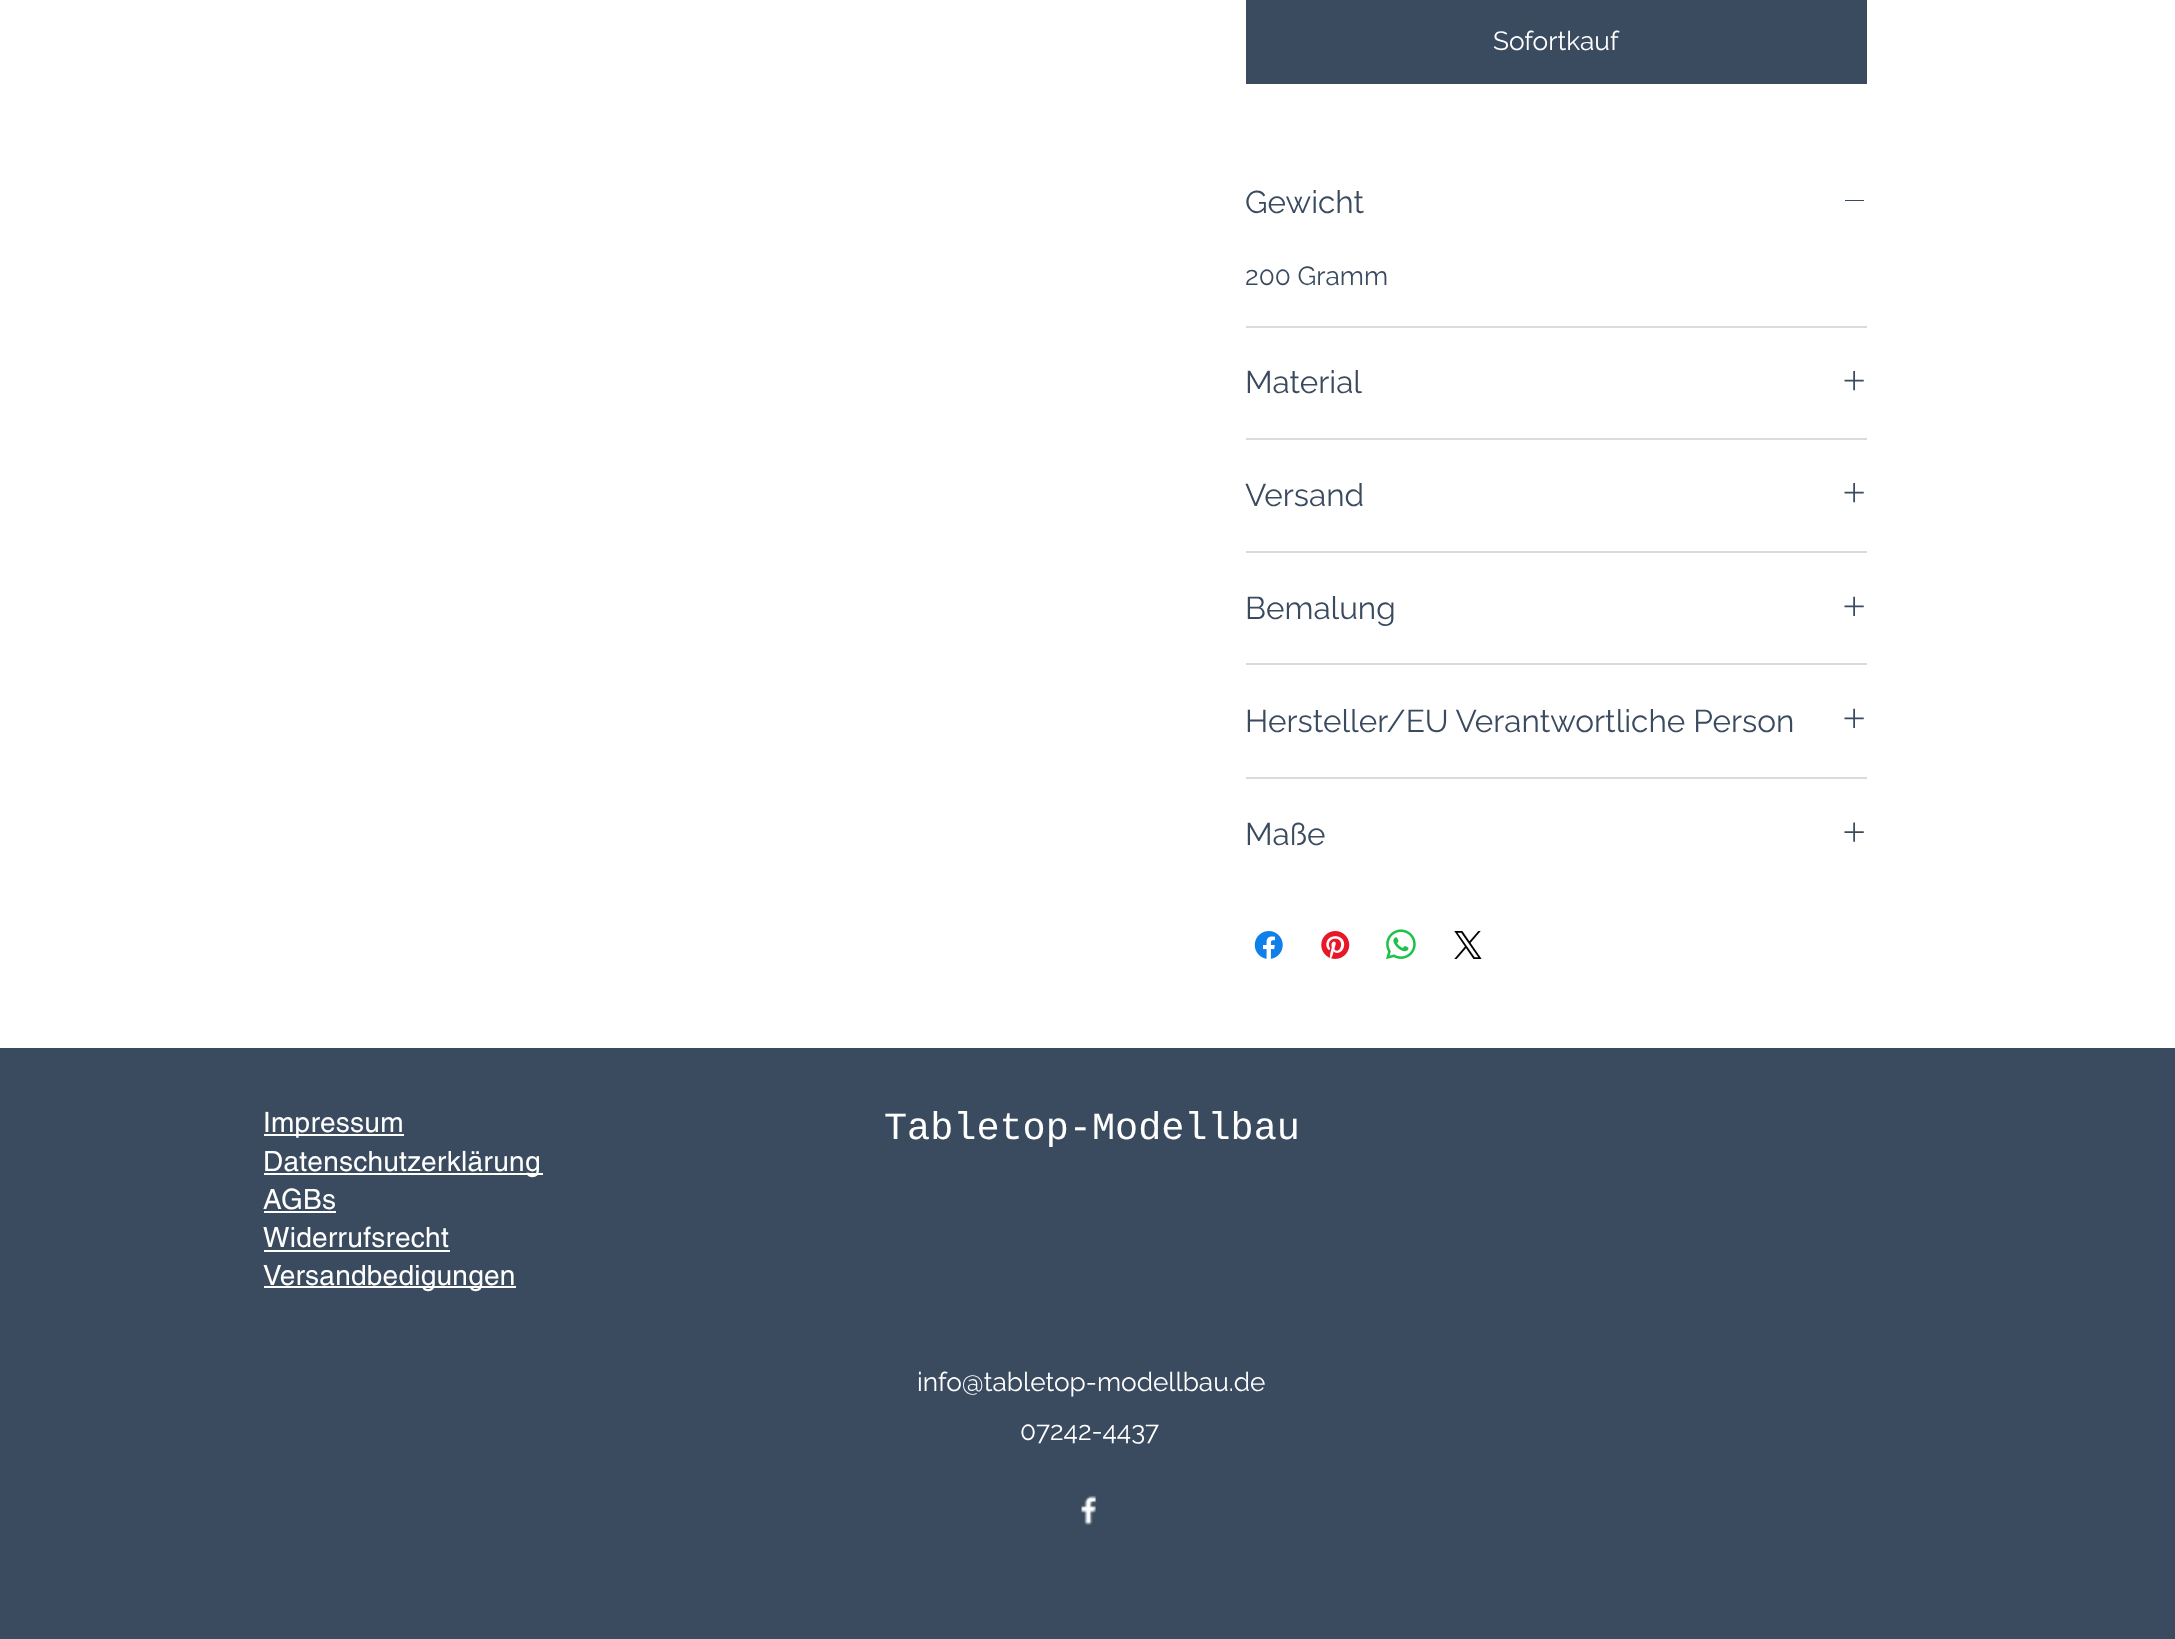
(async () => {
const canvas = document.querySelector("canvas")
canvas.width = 2175
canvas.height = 1639
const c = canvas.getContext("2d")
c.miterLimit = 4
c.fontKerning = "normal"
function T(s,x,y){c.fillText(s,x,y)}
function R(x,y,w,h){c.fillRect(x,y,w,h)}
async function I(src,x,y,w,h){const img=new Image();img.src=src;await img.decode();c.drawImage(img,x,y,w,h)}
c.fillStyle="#fff"
R(0,0,2175,1639)
c.fillStyle="#3a4a5f"
R(1246,0,621,84)
c.font="26.25px Raleway"
c.fillStyle="#fff"
T("Sofortkauf",1493,50)
c.fillStyle="#d8dbdf"
R(1246,326,621,2)
c.font="31.5px Raleway"
c.fillStyle="#3a4a5f"
T("Gewicht",1245,213)
R(1845,200,19,1)
c.font="26.25px Raleway"
T("200 Gramm",1245,285)
c.fillStyle="#d8dbdf"
R(1246,438,621,2)
c.font="31.5px Raleway"
c.fillStyle="#3a4a5f"
T("Material",1245,393)
await I("1.png",1844,371,20,20)
c.fillStyle="#d8dbdf"
R(1246,551,621,2)
c.fillStyle="#3a4a5f"
T("Versand",1245,506)
await I("1.png",1844,483,20,20)
c.fillStyle="#d8dbdf"
R(1246,663,621,2)
c.fillStyle="#3a4a5f"
T("Bemalung",1245,619)
await I("2.png",1844,596,20,20)
c.fillStyle="#d8dbdf"
R(1246,777,621,2)
c.fillStyle="#3a4a5f"
T("Hersteller/EU Verantwortliche Person",1245,732)
await I("2.png",1844,708,20,20)
T("Maße",1245,845)
await I("3.png",1844,822,20,20)
await I("4.png",1254,931,29,28)
await I("5.png",1321,931,29,28)
await I("6.png",1386,929,30,31)
await I("7.png",1454,931,28,28)
R(0,1048,2175,591)
c.fillStyle="#fff"
R(264,1134,140,2)
c.letterSpacing="0.25px"
c.font="28px helvetica"
T("Impressum",263,1132)
R(264,1173,279,2)
T("Datenschutzerklärung",263,1171)
T("AGBs",263,1209)
R(264,1211,72,2)
T("Widerrufsrecht",263,1247)
R(264,1250,186,2)
R(264,1286,252,2)
T("Versandbedigungen",263,1285)
c.letterSpacing="0px"
c.font="38.5px Liberation Mono"
T("Tabletop-Modellbau",884,1139)
c.font="26.25px Raleway"
T("info@tabletop-modellbau.de",917,1391)
T("07242-4437",1020,1440)
await I("8.png",1081,1495,16,30)
})()
